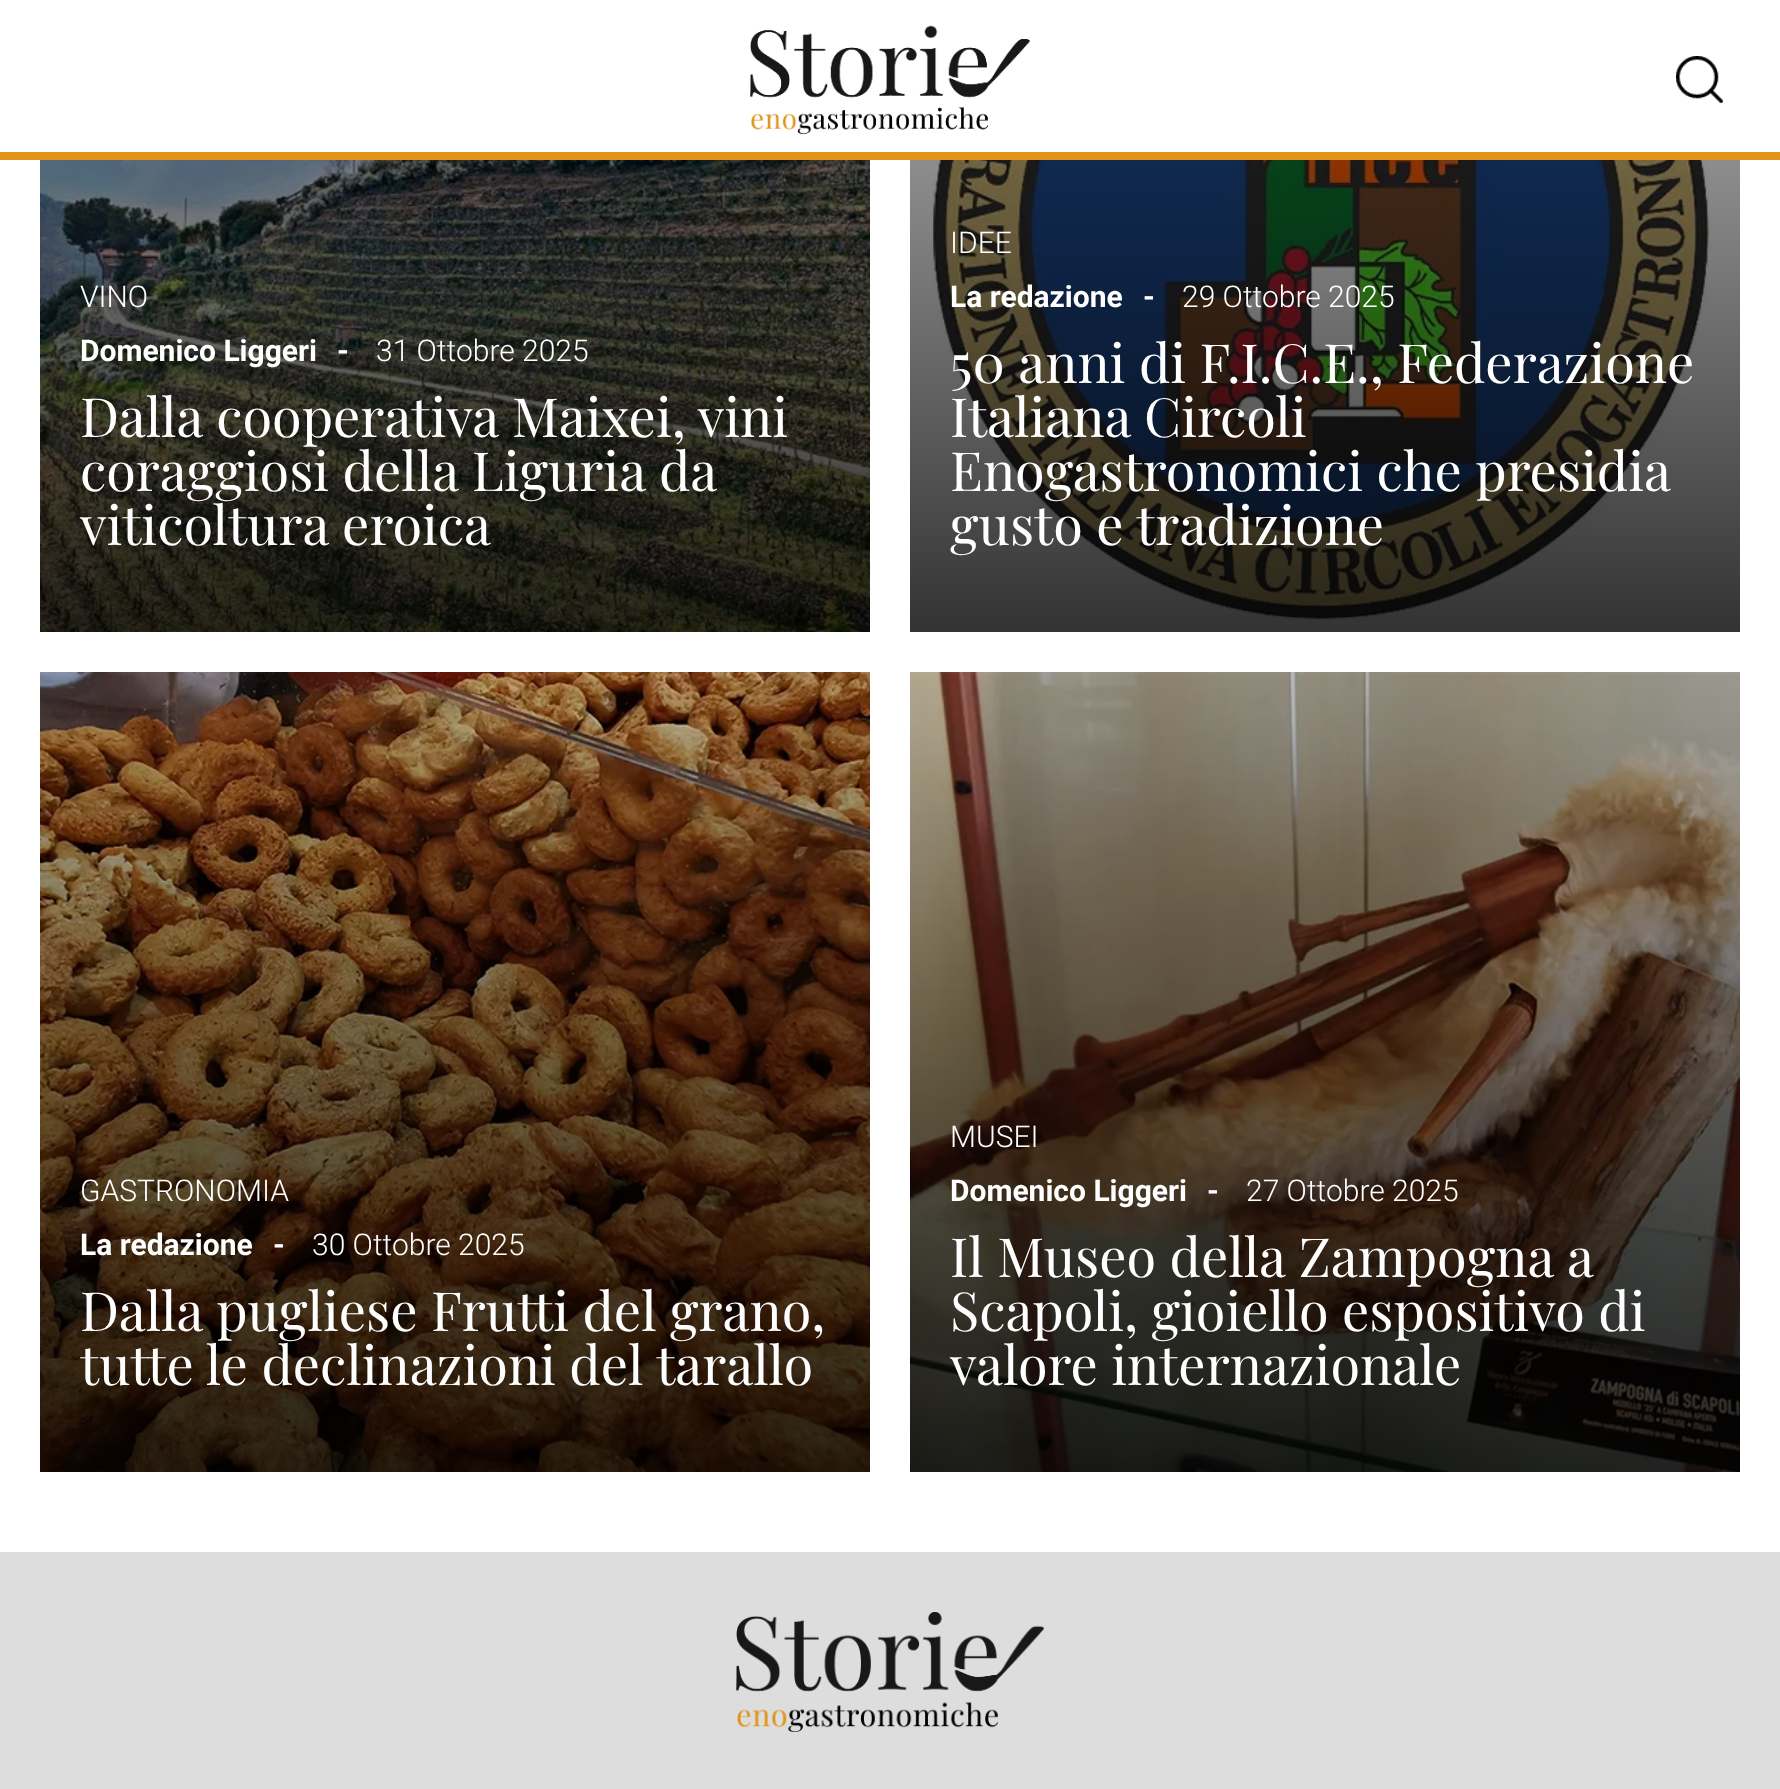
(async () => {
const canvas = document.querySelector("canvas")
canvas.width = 1780
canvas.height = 1789
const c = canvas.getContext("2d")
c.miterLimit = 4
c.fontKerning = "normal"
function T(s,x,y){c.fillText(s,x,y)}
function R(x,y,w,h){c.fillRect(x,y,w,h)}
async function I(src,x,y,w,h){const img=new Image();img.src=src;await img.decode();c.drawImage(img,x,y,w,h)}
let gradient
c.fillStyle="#fff"
R(0,0,1780,1789)
c.fillStyle="#e2931a"
R(0,152,1780,8)
await I("1.png",750,25,280,110)
await I("2.png",1676,56,48,48)
await I("3.png",40,160,830,472)
c.font="300 30px Roboto"
c.fillStyle="#fff"
T("VINO",80,307)
c.font="bold 30px Roboto"
T("Domenico Liggeri",80,361)
T("-",337,361)
c.font="300 30px Roboto"
T("31 Ottobre 2025",376,361)
c.font="54px Playfair Display"
T("Dalla cooperativa Maixei, vini",80,437)
T("coraggiosi della Liguria da",80,491)
T("viticoltura eroica",80,545)
await I("4.png",932,160,781,463)
gradient = c.createLinearGradient(1325,-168,1325,632)
gradient.addColorStop(0,"#00000033")
gradient.addColorStop(1,"#000000cc")
c.fillStyle = gradient
R(910,160,830,472)
c.font="300 30px Roboto"
c.fillStyle="#fff"
T("IDEE",950,253)
c.font="bold 30px Roboto"
T("La redazione",950,307)
T("-",1143,307)
c.font="300 30px Roboto"
T("29 Ottobre 2025",1182,307)
c.font="54px Playfair Display"
T("50 anni di F.I.C.E., Federazione",950,383)
T("Italiana Circoli",950,437)
T("Enogastronomici che presidia",950,491)
T("gusto e tradizione",950,545)
await I("5.png",40,672,830,800)
c.font="300 30px Roboto"
T("GASTRONOMIA",80,1201)
c.font="bold 30px Roboto"
T("La redazione",80,1255)
T("-",273,1255)
c.font="300 30px Roboto"
T("30 Ottobre 2025",312,1255)
c.font="54px Playfair Display"
T("Dalla pugliese Frutti del grano,",80,1331)
T("tutte le declinazioni del tarallo",80,1385)
await I("6.png",910,672,830,800)
c.font="300 30px Roboto"
T("MUSEI",950,1147)
c.font="bold 30px Roboto"
T("Domenico Liggeri",950,1201)
T("-",1207,1201)
c.font="300 30px Roboto"
T("27 Ottobre 2025",1246,1201)
c.font="54px Playfair Display"
T("Il Museo della Zampogna a",950,1277)
T("Scapoli, gioiello espositivo di",950,1331)
T("valore internazionale",950,1385)
c.fillStyle="#ddd"
R(0,1552,1780,237)
await I("7.png",736,1612,308,120)
})()
